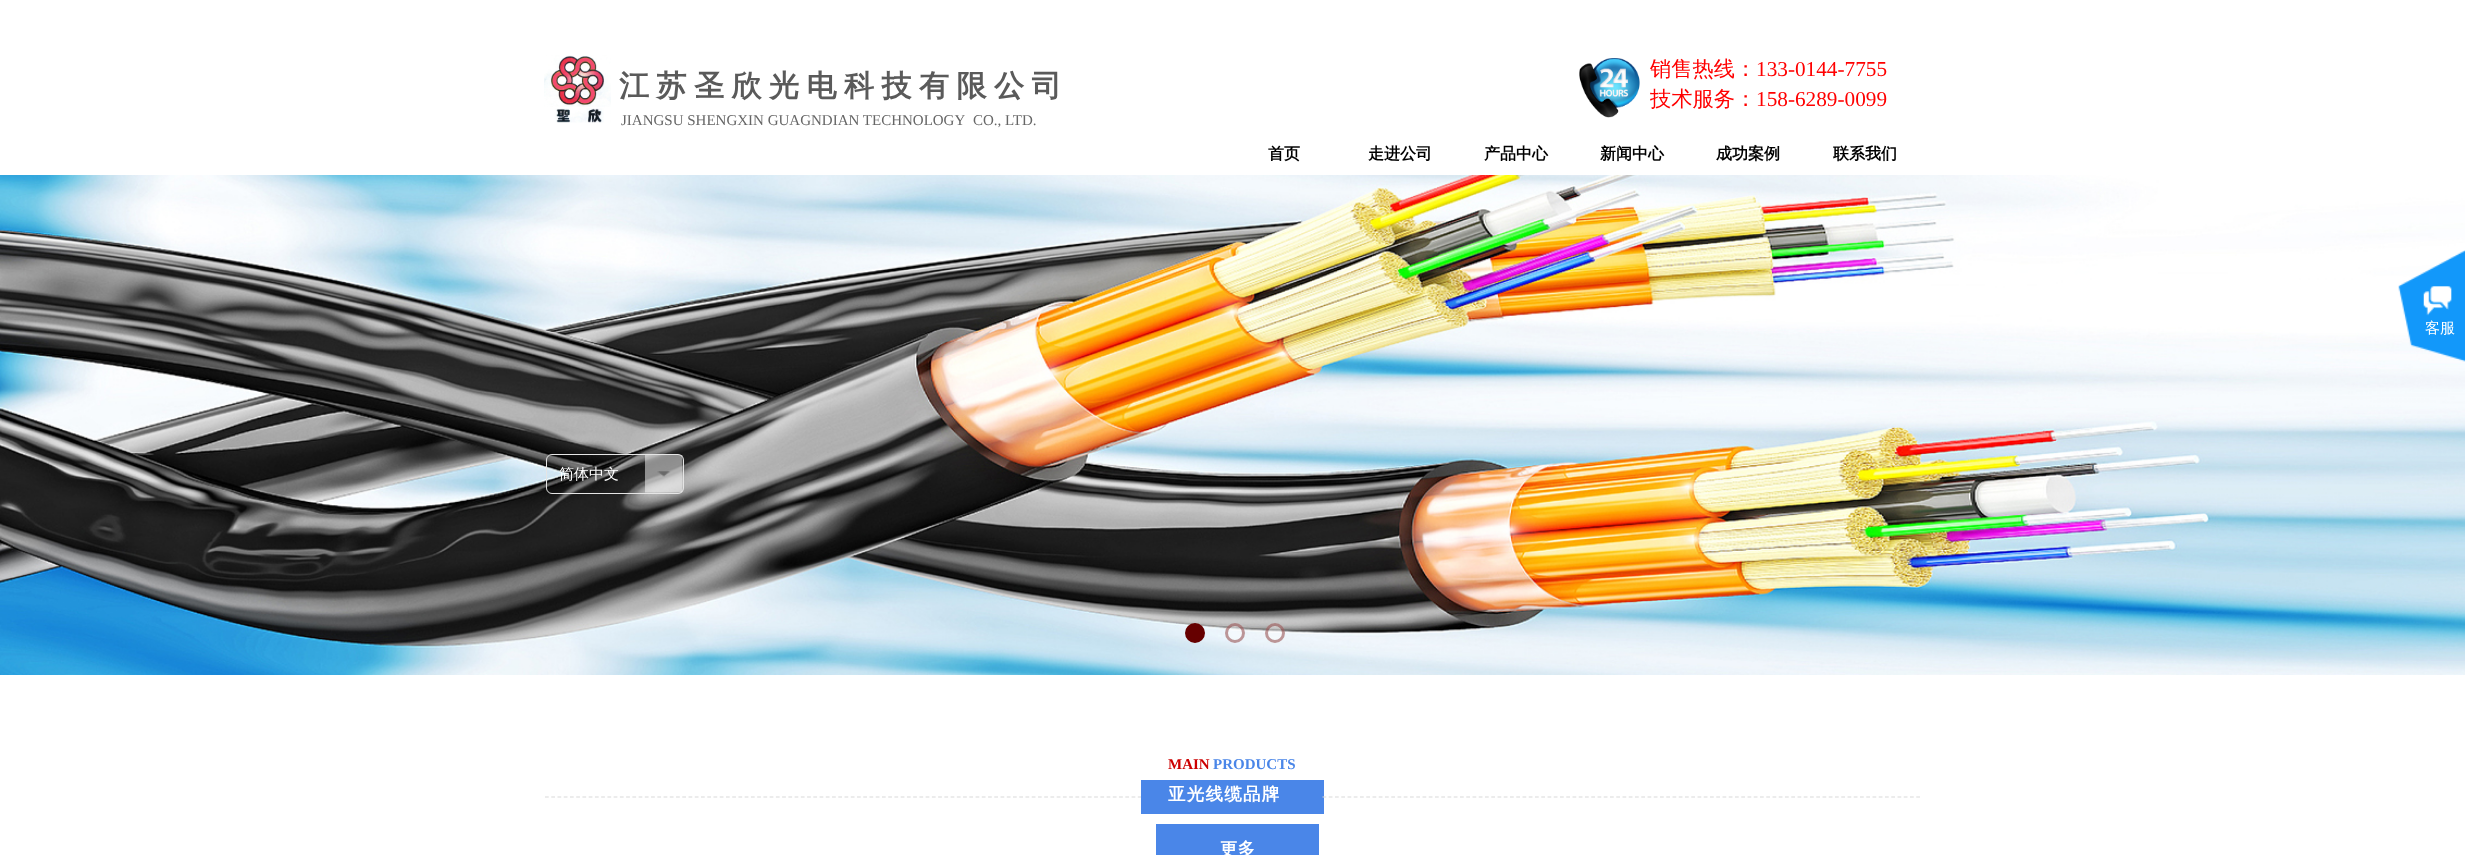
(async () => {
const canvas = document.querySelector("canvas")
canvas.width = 2465
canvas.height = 855
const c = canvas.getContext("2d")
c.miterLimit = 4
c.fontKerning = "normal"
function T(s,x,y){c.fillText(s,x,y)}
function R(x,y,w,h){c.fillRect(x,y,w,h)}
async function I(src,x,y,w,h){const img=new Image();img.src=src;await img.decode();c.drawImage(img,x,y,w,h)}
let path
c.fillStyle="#fff"
R(0,0,2465,855)
await I("1.png",544,55,67,68)
c.letterSpacing="7.5px"
c.font="bold 30px WenQuanYi Zen Hei"
c.fillStyle="#5a5a5a"
T("江苏圣欣光电科技有限公司",619,96)
await I("2.png",1579,58,61,60)
c.letterSpacing="0px"
c.font="500 21.25px WenQuanYi Zen Hei"
c.fillStyle="#f00"
T("销售热线：",1650,76)
c.font="21.25px Liberation Serif"
T("133-0144-7755",1756,76)
c.font="500 21.25px WenQuanYi Zen Hei"
T("技术服务：",1650,106)
c.font="21.25px Liberation Serif"
T("158-6289-0099",1756,106)
c.font="15px Liberation Serif"
c.fillStyle="#666"
T("JIANGSU SHENGXIN GUAGNDIAN TECHNOLOGY",621,125)
T("CO., LTD.",973,125)
c.font="bold 16px WenQuanYi Zen Hei"
c.fillStyle="#000"
T("首页",1268,159)
T("走进公司",1368,159)
T("产品中心",1484,159)
T("新闻中心",1600,159)
T("成功案例",1716,159)
T("联系我们",1833,159)
await I("3.png",0,175,2465,500)
c.fillStyle="#600"
c.beginPath()
c.arc(1195,633,8.5,0,7)
c.fill()
c.strokeStyle="#600"
c.lineWidth=3
c.stroke()
c.fillStyle="#ffffff66"
c.beginPath()
c.arc(1235,633,10,0,7)
c.fill()
c.beginPath()
c.arc(1235,633,8.5,0,7)
c.strokeStyle="#66000066"
c.stroke()
c.beginPath()
c.arc(1275,633,10,0,7)
c.fill()
c.beginPath()
c.arc(1275,633,8.5,0,7)
c.stroke()
c.beginPath()
c.roundRect(546.5,454.5,137,39,5.5)
c.strokeStyle="#e5e5e5"
c.lineWidth=1
c.stroke()
c.font="500 15px WenQuanYi Zen Hei"
c.fillStyle="#fff"
T("简体中文",559,479)
await I("4.png",645,455,38,38)
c.font="bold 15px Liberation Serif"
c.fillStyle="#c00"
T("MAIN",1168,769)
c.fillStyle="#4a86e8"
T("PRODUCTS",1213,769)
R(1141,780,183,34)
path = new Path2D("M545 797h596")
c.strokeStyle="#d9d9d9"
c.lineWidth=1.2
c.setLineDash([3.75,2.49])
c.stroke(path)
c.letterSpacing="1.25px"
c.font="bold 17.5px WenQuanYi Zen Hei"
c.fillStyle="#fff"
T("亚光线缆品牌",1168,800)
path = new Path2D("M1322.5 797h597.5")
c.setLineDash([3.75,2.5])
c.stroke(path)
c.fillStyle="#4a86e8"
R(1156,824,163,31)
c.letterSpacing="0px"
c.fillStyle="#fff"
T("更多",1220,855)
await I("5.png",2398,250,67,112)
c.font="500 15px WenQuanYi Zen Hei"
T("客服",2425,333)
})()
